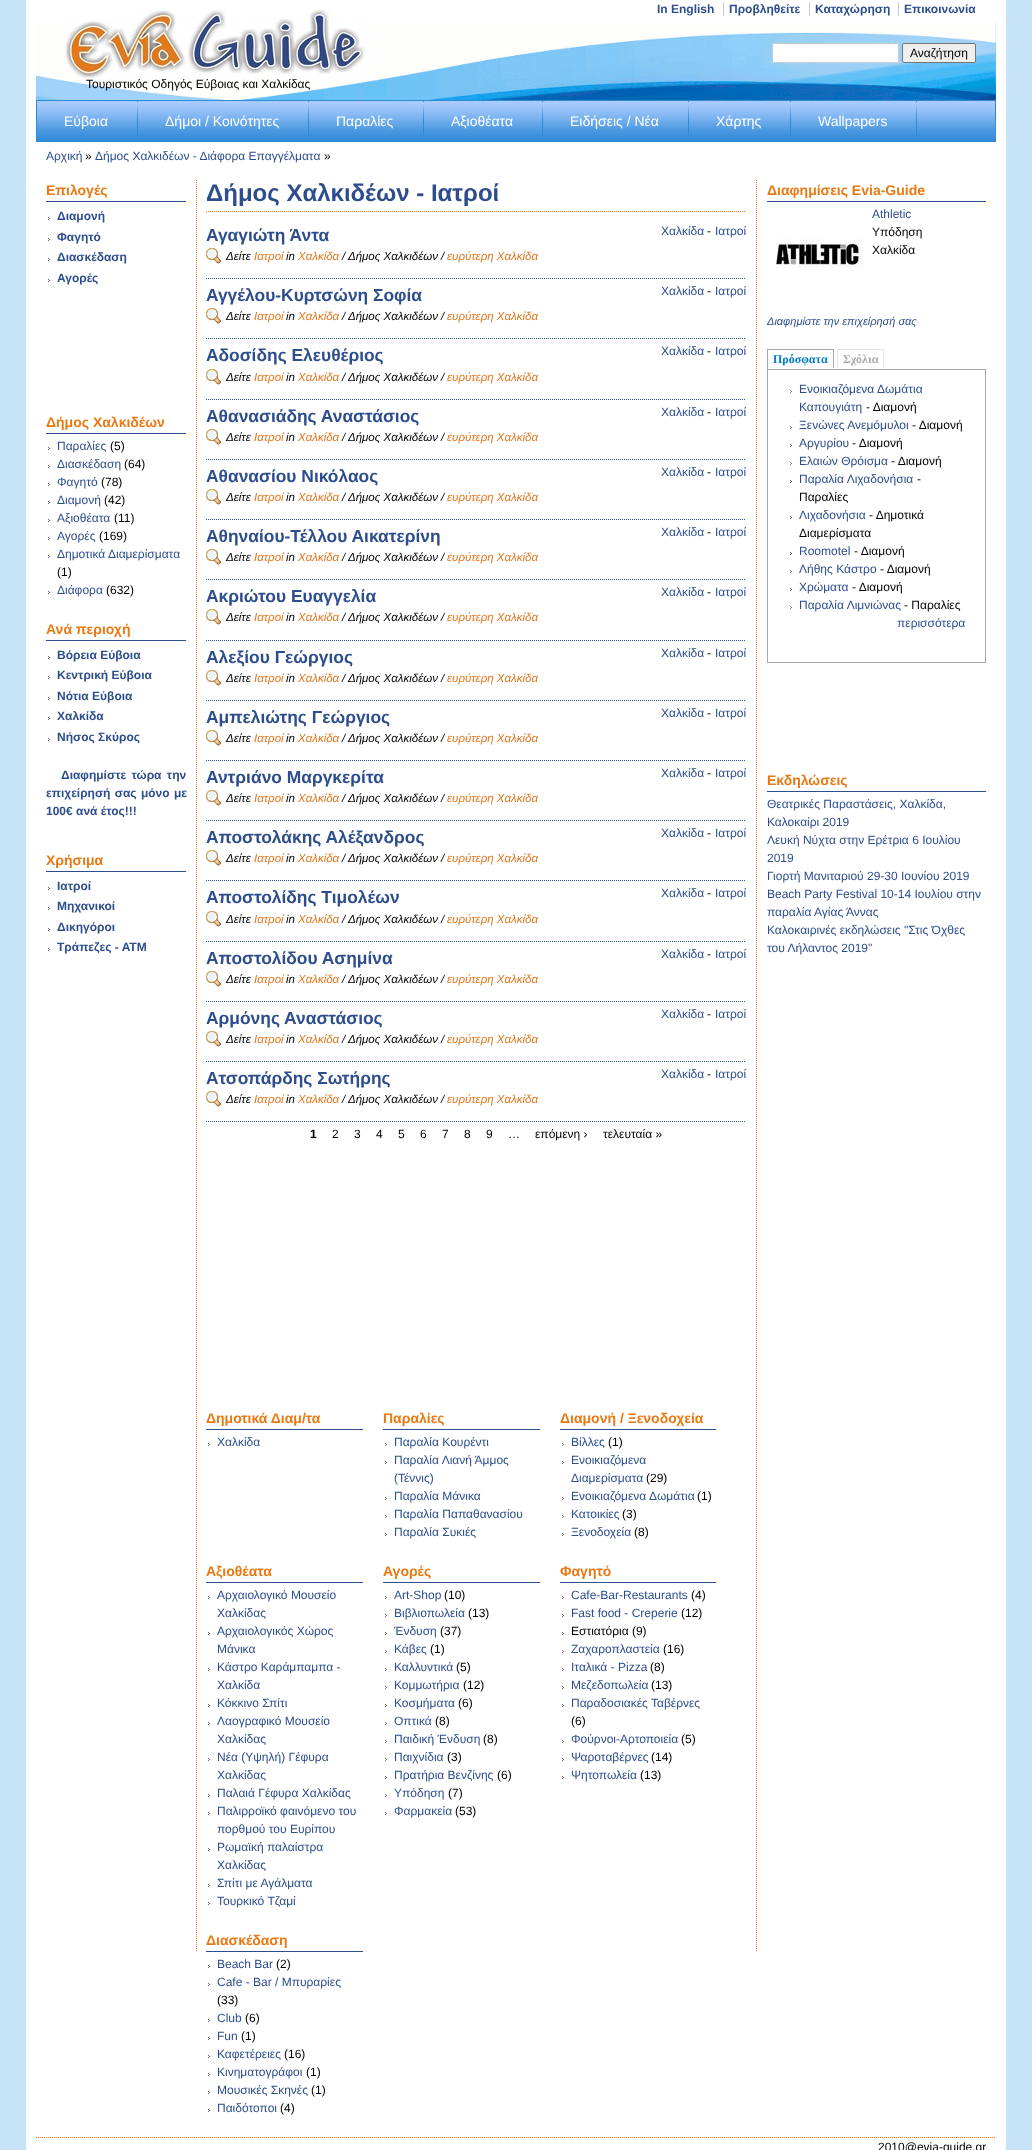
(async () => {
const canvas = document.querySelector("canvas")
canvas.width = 1032
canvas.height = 2150
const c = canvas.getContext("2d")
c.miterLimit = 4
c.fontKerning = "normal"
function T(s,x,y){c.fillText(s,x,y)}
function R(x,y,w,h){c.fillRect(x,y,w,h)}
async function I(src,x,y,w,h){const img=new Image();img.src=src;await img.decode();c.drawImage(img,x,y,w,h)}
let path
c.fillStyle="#c6e3f7"
R(0,0,1032,2150)
c.fillStyle="#fff"
R(26,0,980,2150)
await I("1.png",36,22,960,78)
c.font="bold 12px Liberation Sans"
c.fillStyle="#2d4d8d"
T("In English",657,13)
T("Προβληθείτε",729,13)
c.fillStyle="#ccc"
R(723,2,1,14)
c.fillStyle="#2d4d8d"
T("Καταχώρηση",815,13)
c.fillStyle="#ccc"
R(809,2,1,14)
c.fillStyle="#2d4d8d"
T("Επικοινωνία",904,13)
c.fillStyle="#ccc"
R(898,2,1,14)
c.fillStyle="#fff"
c.beginPath()
c.rect(772.5,43.5,126,19)
c.fill()
c.strokeStyle="#ccc"
c.stroke()
c.fillStyle="#efefef"
c.beginPath()
c.roundRect(902.5,43.5,73,19,1.5)
c.fill()
c.strokeStyle="#767676"
c.stroke()
c.font="12px Liberation Sans"
c.fillStyle="#000"
T("Αναζήτηση",910,57)
await I("2.png",61,5,306,75)
T("Τουριστικός Οδηγός Εύβοιας και Χαλκίδας",86,88)
await I("3.png",37,101,958,40)
c.strokeStyle="#308ad7"
c.strokeRect(36.5,100.5,959,41)
await I("4.png",137,101,1,38)
c.font="14px Liberation Sans"
c.fillStyle="#fff"
T("Εύβοια",64,126)
await I("4.png",308,101,1,38)
T("Δήμοι / Κοινότητες",165,126)
await I("4.png",423,101,1,38)
T("Παραλίες",336,126)
await I("4.png",542,101,1,38)
T("Αξιοθέατα",451,126)
await I("4.png",688,101,1,38)
T("Ειδήσεις / Νέα",570,126)
await I("4.png",790,101,1,38)
T("Χάρτης",716,126)
await I("4.png",916,101,1,38)
T("Wallpapers",818,126)
c.font="12px Liberation Sans"
c.fillStyle="#2d4d8d"
T("Αρχική",46,160)
c.fillStyle="#000"
T("»",85,160)
c.fillStyle="#2d4d8d"
T("Δήμος Χαλκιδέων - Διάφορα Επαγγέλματα",95,160)
c.fillStyle="#000"
T("»",324,160)
path = new Path2D("M196.5 180v1772")
c.strokeStyle="#ea7913"
c.setLineDash([1,1])
c.stroke(path)
c.fillStyle="#2d4d8d"
R(46,201,140,1)
c.font="bold 14px Liberation Sans"
c.fillStyle="#ea7913"
T("Επιλογές",46,195)
await I("5.png",48,217,2,3)
c.font="bold 12px Liberation Sans"
c.fillStyle="#2d4d8d"
T("Διαμονή",57,220)
await I("5.png",48,238,2,3)
T("Φαγητό",57,241)
await I("5.png",48,258,2,3)
T("Διασκέδαση",57,261)
await I("5.png",48,279,2,3)
T("Αγορές",57,282)
R(46,433,140,1)
c.font="bold 14px Liberation Sans"
c.fillStyle="#ea7913"
T("Δήμος Χαλκιδέων",46,427)
await I("5.png",48,447,2,3)
c.font="12px Liberation Sans"
c.fillStyle="#2d4d8d"
T("Παραλίες",57,450)
c.fillStyle="#000"
T("(5)",110,450)
await I("5.png",48,465,2,3)
c.fillStyle="#2d4d8d"
T("Διασκέδαση",57,468)
c.fillStyle="#000"
T("(64)",124,468)
await I("5.png",48,483,2,3)
c.fillStyle="#2d4d8d"
T("Φαγητό",57,486)
c.fillStyle="#000"
T("(78)",101,486)
await I("5.png",48,501,2,3)
c.fillStyle="#2d4d8d"
T("Διαμονή",57,504)
c.fillStyle="#000"
T("(42)",104,504)
await I("5.png",48,519,2,3)
c.fillStyle="#2d4d8d"
T("Αξιοθέατα",57,522)
c.fillStyle="#000"
T("(11)",114,522)
await I("5.png",48,537,2,3)
c.fillStyle="#2d4d8d"
T("Αγορές",57,540)
c.fillStyle="#000"
T("(169)",99,540)
await I("5.png",48,555,2,3)
c.fillStyle="#2d4d8d"
T("Δημοτικά Διαμερίσματα",57,558)
c.fillStyle="#000"
T("(1)",57,576)
await I("5.png",48,591,2,3)
c.fillStyle="#2d4d8d"
T("Διάφορα",57,594)
c.fillStyle="#000"
T("(632)",106,594)
c.fillStyle="#2d4d8d"
R(46,640,140,1)
c.font="bold 14px Liberation Sans"
c.fillStyle="#ea7913"
T("Ανά περιοχή",46,634)
await I("5.png",48,656,2,3)
c.font="bold 12px Liberation Sans"
c.fillStyle="#2d4d8d"
T("Βόρεια Εύβοια",57,659)
await I("5.png",48,676,2,3)
T("Κεντρική Εύβοια",57,679)
await I("5.png",48,697,2,3)
T("Νότια Εύβοια",57,700)
await I("5.png",48,717,2,3)
T("Χαλκίδα",57,720)
await I("5.png",48,738,2,3)
T("Νήσος Σκύρος",57,741)
c.wordSpacing="2px"
T("Διαφημίστε τώρα την",61,779)
c.wordSpacing="1px"
T("επιχείρησή σας μόνο με",46,797)
c.wordSpacing="0px"
T("100€ ανά έτος!!!",46,815)
R(46,871,140,1)
c.font="bold 14px Liberation Sans"
c.fillStyle="#ea7913"
T("Χρήσιμα",46,865)
await I("5.png",48,887,2,3)
c.font="bold 12px Liberation Sans"
c.fillStyle="#2d4d8d"
T("Ιατροί",57,890)
await I("5.png",48,907,2,3)
T("Μηχανικοί",57,910)
await I("5.png",48,928,2,3)
T("Δικηγόροι",57,931)
await I("5.png",48,948,2,3)
T("Τράπεζες - ΑΤΜ",57,951)
path = new Path2D("M206 211.5h540")
c.stroke(path)
c.font="bold 24px Liberation Sans"
T("Δήμος Χαλκιδέων - Ιατροί",206,201)
path = new Path2D("M206 278.5h540")
c.strokeStyle="#2d4d8d"
c.stroke(path)
c.font="bold 17.4px Liberation Sans"
T("Αγαγιώτη Άντα",206,241)
c.font="12px Liberation Sans"
T("Χαλκίδα",661,235)
c.fillStyle="#000"
T("-",707,235)
c.fillStyle="#2d4d8d"
T("Ιατροί",715,235)
await I("6.png",206,248,16,16)
c.font="italic 11.5px Liberation Sans"
c.fillStyle="#000"
T("Δείτε",226,260)
c.fillStyle="#e1771e"
T("Ιατροί",254,260)
c.fillStyle="#000"
T("in",286,260)
c.fillStyle="#e1771e"
T("Χαλκίδα",298,260)
c.fillStyle="#000"
T("/ Δήμος Χαλκιδέων /",342,260)
c.fillStyle="#e1771e"
T("ευρύτερη Χαλκίδα",447,260)
path = new Path2D("M206 338.5h540")
c.stroke(path)
c.font="bold 17.4px Liberation Sans"
c.fillStyle="#2d4d8d"
T("Αγγέλου-Κυρτσώνη Σοφία",206,301)
c.font="12px Liberation Sans"
T("Χαλκίδα",661,295)
c.fillStyle="#000"
T("-",707,295)
c.fillStyle="#2d4d8d"
T("Ιατροί",715,295)
await I("6.png",206,308,16,16)
c.font="italic 11.5px Liberation Sans"
c.fillStyle="#000"
T("Δείτε",226,320)
c.fillStyle="#e1771e"
T("Ιατροί",254,320)
c.fillStyle="#000"
T("in",286,320)
c.fillStyle="#e1771e"
T("Χαλκίδα",298,320)
c.fillStyle="#000"
T("/ Δήμος Χαλκιδέων /",342,320)
c.fillStyle="#e1771e"
T("ευρύτερη Χαλκίδα",447,320)
path = new Path2D("M206 399.5h540")
c.stroke(path)
c.font="bold 17.4px Liberation Sans"
c.fillStyle="#2d4d8d"
T("Αδοσίδης Ελευθέριος",206,361)
c.font="12px Liberation Sans"
T("Χαλκίδα",661,355)
c.fillStyle="#000"
T("-",707,355)
c.fillStyle="#2d4d8d"
T("Ιατροί",715,355)
await I("6.png",206,369,16,16)
c.font="italic 11.5px Liberation Sans"
c.fillStyle="#000"
T("Δείτε",226,381)
c.fillStyle="#e1771e"
T("Ιατροί",254,381)
c.fillStyle="#000"
T("in",286,381)
c.fillStyle="#e1771e"
T("Χαλκίδα",298,381)
c.fillStyle="#000"
T("/ Δήμος Χαλκιδέων /",342,381)
c.fillStyle="#e1771e"
T("ευρύτερη Χαλκίδα",447,381)
path = new Path2D("M206 459.5h540")
c.stroke(path)
c.font="bold 17.4px Liberation Sans"
c.fillStyle="#2d4d8d"
T("Αθανασιάδης Αναστάσιος",206,422)
c.font="12px Liberation Sans"
T("Χαλκίδα",661,416)
c.fillStyle="#000"
T("-",707,416)
c.fillStyle="#2d4d8d"
T("Ιατροί",715,416)
await I("6.png",206,429,16,16)
c.font="italic 11.5px Liberation Sans"
c.fillStyle="#000"
T("Δείτε",226,441)
c.fillStyle="#e1771e"
T("Ιατροί",254,441)
c.fillStyle="#000"
T("in",286,441)
c.fillStyle="#e1771e"
T("Χαλκίδα",298,441)
c.fillStyle="#000"
T("/ Δήμος Χαλκιδέων /",342,441)
c.fillStyle="#e1771e"
T("ευρύτερη Χαλκίδα",447,441)
path = new Path2D("M206 519.5h540")
c.stroke(path)
c.font="bold 17.4px Liberation Sans"
c.fillStyle="#2d4d8d"
T("Αθανασίου Νικόλαος",206,482)
c.font="12px Liberation Sans"
T("Χαλκίδα",661,476)
c.fillStyle="#000"
T("-",707,476)
c.fillStyle="#2d4d8d"
T("Ιατροί",715,476)
await I("6.png",206,489,16,16)
c.font="italic 11.5px Liberation Sans"
c.fillStyle="#000"
T("Δείτε",226,501)
c.fillStyle="#e1771e"
T("Ιατροί",254,501)
c.fillStyle="#000"
T("in",286,501)
c.fillStyle="#e1771e"
T("Χαλκίδα",298,501)
c.fillStyle="#000"
T("/ Δήμος Χαλκιδέων /",342,501)
c.fillStyle="#e1771e"
T("ευρύτερη Χαλκίδα",447,501)
path = new Path2D("M206 579.5h540")
c.stroke(path)
c.font="bold 17.4px Liberation Sans"
c.fillStyle="#2d4d8d"
T("Αθηναίου-Τέλλου Αικατερίνη",206,542)
c.font="12px Liberation Sans"
T("Χαλκίδα",661,536)
c.fillStyle="#000"
T("-",707,536)
c.fillStyle="#2d4d8d"
T("Ιατροί",715,536)
await I("6.png",206,549,16,16)
c.font="italic 11.5px Liberation Sans"
c.fillStyle="#000"
T("Δείτε",226,561)
c.fillStyle="#e1771e"
T("Ιατροί",254,561)
c.fillStyle="#000"
T("in",286,561)
c.fillStyle="#e1771e"
T("Χαλκίδα",298,561)
c.fillStyle="#000"
T("/ Δήμος Χαλκιδέων /",342,561)
c.fillStyle="#e1771e"
T("ευρύτερη Χαλκίδα",447,561)
path = new Path2D("M206 640.5h540")
c.stroke(path)
c.font="bold 17.4px Liberation Sans"
c.fillStyle="#2d4d8d"
T("Ακριώτου Ευαγγελία",206,602)
c.font="12px Liberation Sans"
T("Χαλκίδα",661,596)
c.fillStyle="#000"
T("-",707,596)
c.fillStyle="#2d4d8d"
T("Ιατροί",715,596)
await I("6.png",206,609,16,16)
c.font="italic 11.5px Liberation Sans"
c.fillStyle="#000"
T("Δείτε",226,621)
c.fillStyle="#e1771e"
T("Ιατροί",254,621)
c.fillStyle="#000"
T("in",286,621)
c.fillStyle="#e1771e"
T("Χαλκίδα",298,621)
c.fillStyle="#000"
T("/ Δήμος Χαλκιδέων /",342,621)
c.fillStyle="#e1771e"
T("ευρύτερη Χαλκίδα",447,621)
path = new Path2D("M206 700.5h540")
c.stroke(path)
c.font="bold 17.4px Liberation Sans"
c.fillStyle="#2d4d8d"
T("Αλεξίου Γεώργιος",206,663)
c.font="12px Liberation Sans"
T("Χαλκίδα",661,657)
c.fillStyle="#000"
T("-",707,657)
c.fillStyle="#2d4d8d"
T("Ιατροί",715,657)
await I("6.png",206,670,16,16)
c.font="italic 11.5px Liberation Sans"
c.fillStyle="#000"
T("Δείτε",226,682)
c.fillStyle="#e1771e"
T("Ιατροί",254,682)
c.fillStyle="#000"
T("in",286,682)
c.fillStyle="#e1771e"
T("Χαλκίδα",298,682)
c.fillStyle="#000"
T("/ Δήμος Χαλκιδέων /",342,682)
c.fillStyle="#e1771e"
T("ευρύτερη Χαλκίδα",447,682)
path = new Path2D("M206 760.5h540")
c.stroke(path)
c.font="bold 17.4px Liberation Sans"
c.fillStyle="#2d4d8d"
T("Αμπελιώτης Γεώργιος",206,723)
c.font="12px Liberation Sans"
T("Χαλκίδα",661,717)
c.fillStyle="#000"
T("-",707,717)
c.fillStyle="#2d4d8d"
T("Ιατροί",715,717)
await I("6.png",206,730,16,16)
c.font="italic 11.5px Liberation Sans"
c.fillStyle="#000"
T("Δείτε",226,742)
c.fillStyle="#e1771e"
T("Ιατροί",254,742)
c.fillStyle="#000"
T("in",286,742)
c.fillStyle="#e1771e"
T("Χαλκίδα",298,742)
c.fillStyle="#000"
T("/ Δήμος Χαλκιδέων /",342,742)
c.fillStyle="#e1771e"
T("ευρύτερη Χαλκίδα",447,742)
path = new Path2D("M206 820.5h540")
c.stroke(path)
c.font="bold 17.4px Liberation Sans"
c.fillStyle="#2d4d8d"
T("Αντριάνο Μαργκερίτα",206,783)
c.font="12px Liberation Sans"
T("Χαλκίδα",661,777)
c.fillStyle="#000"
T("-",707,777)
c.fillStyle="#2d4d8d"
T("Ιατροί",715,777)
await I("6.png",206,790,16,16)
c.font="italic 11.5px Liberation Sans"
c.fillStyle="#000"
T("Δείτε",226,802)
c.fillStyle="#e1771e"
T("Ιατροί",254,802)
c.fillStyle="#000"
T("in",286,802)
c.fillStyle="#e1771e"
T("Χαλκίδα",298,802)
c.fillStyle="#000"
T("/ Δήμος Χαλκιδέων /",342,802)
c.fillStyle="#e1771e"
T("ευρύτερη Χαλκίδα",447,802)
path = new Path2D("M206 880.5h540")
c.stroke(path)
c.font="bold 17.4px Liberation Sans"
c.fillStyle="#2d4d8d"
T("Αποστολάκης Αλέξανδρος",206,843)
c.font="12px Liberation Sans"
T("Χαλκίδα",661,837)
c.fillStyle="#000"
T("-",707,837)
c.fillStyle="#2d4d8d"
T("Ιατροί",715,837)
await I("6.png",206,850,16,16)
c.font="italic 11.5px Liberation Sans"
c.fillStyle="#000"
T("Δείτε",226,862)
c.fillStyle="#e1771e"
T("Ιατροί",254,862)
c.fillStyle="#000"
T("in",286,862)
c.fillStyle="#e1771e"
T("Χαλκίδα",298,862)
c.fillStyle="#000"
T("/ Δήμος Χαλκιδέων /",342,862)
c.fillStyle="#e1771e"
T("ευρύτερη Χαλκίδα",447,862)
path = new Path2D("M206 941.5h540")
c.stroke(path)
c.font="bold 17.4px Liberation Sans"
c.fillStyle="#2d4d8d"
T("Αποστολίδης Τιμολέων",206,903)
c.font="12px Liberation Sans"
T("Χαλκίδα",661,897)
c.fillStyle="#000"
T("-",707,897)
c.fillStyle="#2d4d8d"
T("Ιατροί",715,897)
await I("6.png",206,911,16,16)
c.font="italic 11.5px Liberation Sans"
c.fillStyle="#000"
T("Δείτε",226,923)
c.fillStyle="#e1771e"
T("Ιατροί",254,923)
c.fillStyle="#000"
T("in",286,923)
c.fillStyle="#e1771e"
T("Χαλκίδα",298,923)
c.fillStyle="#000"
T("/ Δήμος Χαλκιδέων /",342,923)
c.fillStyle="#e1771e"
T("ευρύτερη Χαλκίδα",447,923)
path = new Path2D("M206 1001.5h540")
c.stroke(path)
c.font="bold 17.4px Liberation Sans"
c.fillStyle="#2d4d8d"
T("Αποστολίδου Ασημίνα",206,964)
c.font="12px Liberation Sans"
T("Χαλκίδα",661,958)
c.fillStyle="#000"
T("-",707,958)
c.fillStyle="#2d4d8d"
T("Ιατροί",715,958)
await I("6.png",206,971,16,16)
c.font="italic 11.5px Liberation Sans"
c.fillStyle="#000"
T("Δείτε",226,983)
c.fillStyle="#e1771e"
T("Ιατροί",254,983)
c.fillStyle="#000"
T("in",286,983)
c.fillStyle="#e1771e"
T("Χαλκίδα",298,983)
c.fillStyle="#000"
T("/ Δήμος Χαλκιδέων /",342,983)
c.fillStyle="#e1771e"
T("ευρύτερη Χαλκίδα",447,983)
path = new Path2D("M206 1061.5h540")
c.stroke(path)
c.font="bold 17.4px Liberation Sans"
c.fillStyle="#2d4d8d"
T("Αρμόνης Αναστάσιος",206,1024)
c.font="12px Liberation Sans"
T("Χαλκίδα",661,1018)
c.fillStyle="#000"
T("-",707,1018)
c.fillStyle="#2d4d8d"
T("Ιατροί",715,1018)
await I("6.png",206,1031,16,16)
c.font="italic 11.5px Liberation Sans"
c.fillStyle="#000"
T("Δείτε",226,1043)
c.fillStyle="#e1771e"
T("Ιατροί",254,1043)
c.fillStyle="#000"
T("in",286,1043)
c.fillStyle="#e1771e"
T("Χαλκίδα",298,1043)
c.fillStyle="#000"
T("/ Δήμος Χαλκιδέων /",342,1043)
c.fillStyle="#e1771e"
T("ευρύτερη Χαλκίδα",447,1043)
path = new Path2D("M206 1121.5h540")
c.stroke(path)
c.font="bold 17.4px Liberation Sans"
c.fillStyle="#2d4d8d"
T("Ατσοπάρδης Σωτήρης",206,1084)
c.font="12px Liberation Sans"
T("Χαλκίδα",661,1078)
c.fillStyle="#000"
T("-",707,1078)
c.fillStyle="#2d4d8d"
T("Ιατροί",715,1078)
await I("6.png",206,1091,16,16)
c.font="italic 11.5px Liberation Sans"
c.fillStyle="#000"
T("Δείτε",226,1103)
c.fillStyle="#e1771e"
T("Ιατροί",254,1103)
c.fillStyle="#000"
T("in",286,1103)
c.fillStyle="#e1771e"
T("Χαλκίδα",298,1103)
c.fillStyle="#000"
T("/ Δήμος Χαλκιδέων /",342,1103)
c.fillStyle="#e1771e"
T("ευρύτερη Χαλκίδα",447,1103)
c.font="bold 12px Liberation Sans"
c.fillStyle="#000"
T("1",310,1138)
c.font="12px Liberation Sans"
T("2",332,1138)
T("3",354,1138)
T("4",376,1138)
T("5",398,1138)
T("6",420,1138)
T("7",442,1138)
T("8",464,1138)
T("9",486,1138)
T("…",508,1138)
T("επόμενη ›",535,1138)
T("τελευταία »",603,1138)
c.fillStyle="#2d4d8d"
R(206,1429,157,1)
c.font="bold 14px Liberation Sans"
c.fillStyle="#ea7913"
T("Δημοτικά Διαμ/τα",206,1423)
await I("5.png",208,1443,2,3)
c.font="12px Liberation Sans"
c.fillStyle="#2d4d8d"
T("Χαλκίδα",217,1446)
R(383,1429,157,1)
c.font="bold 14px Liberation Sans"
c.fillStyle="#ea7913"
T("Παραλίες",383,1423)
await I("5.png",385,1443,2,3)
c.font="12px Liberation Sans"
c.fillStyle="#2d4d8d"
T("Παραλία Κουρέντι",394,1446)
await I("5.png",385,1461,2,3)
T("Παραλία Λιανή Άμμος",394,1464)
T("(Τέννις)",394,1482)
await I("5.png",385,1497,2,3)
T("Παραλία Μάνικα",394,1500)
await I("5.png",385,1515,2,3)
T("Παραλία Παπαθανασίου",394,1518)
await I("5.png",385,1533,2,3)
T("Παραλία Συκιές",394,1536)
R(560,1429,156,1)
c.font="bold 14px Liberation Sans"
c.fillStyle="#ea7913"
T("Διαμονή / Ξενοδοχεία",560,1423)
await I("5.png",562,1443,2,3)
c.font="12px Liberation Sans"
c.fillStyle="#2d4d8d"
T("Βίλλες",571,1446)
c.fillStyle="#000"
T("(1)",608,1446)
await I("5.png",562,1461,2,3)
c.fillStyle="#2d4d8d"
T("Ενοικιαζόμενα",571,1464)
T("Διαμερίσματα",571,1482)
c.fillStyle="#000"
T("(29)",646,1482)
await I("5.png",562,1497,2,3)
c.fillStyle="#2d4d8d"
T("Ενοικιαζόμενα Δωμάτια",571,1500)
c.fillStyle="#000"
T("(1)",697,1500)
await I("5.png",562,1515,2,3)
c.fillStyle="#2d4d8d"
T("Κατοικίες",571,1518)
c.fillStyle="#000"
T("(3)",622,1518)
await I("5.png",562,1533,2,3)
c.fillStyle="#2d4d8d"
T("Ξενοδοχεία",571,1536)
c.fillStyle="#000"
T("(8)",634,1536)
c.fillStyle="#2d4d8d"
R(206,1582,157,1)
c.font="bold 14px Liberation Sans"
c.fillStyle="#ea7913"
T("Αξιοθέατα",206,1576)
await I("5.png",208,1596,2,3)
c.font="12px Liberation Sans"
c.fillStyle="#2d4d8d"
T("Αρχαιολογικό Μουσείο",217,1599)
T("Χαλκίδας",217,1617)
await I("5.png",208,1632,2,3)
T("Αρχαιολογικός Χώρος",217,1635)
T("Μάνικα",217,1653)
await I("5.png",208,1668,2,3)
T("Κάστρο Καράμπαμπα -",217,1671)
T("Χαλκίδα",217,1689)
await I("5.png",208,1704,2,3)
T("Κόκκινο Σπίτι",217,1707)
await I("5.png",208,1722,2,3)
T("Λαογραφικό Μουσείο",217,1725)
T("Χαλκίδας",217,1743)
await I("5.png",208,1758,2,3)
T("Νέα (Υψηλή) Γέφυρα",217,1761)
T("Χαλκίδας",217,1779)
await I("5.png",208,1794,2,3)
T("Παλαιά Γέφυρα Χαλκίδας",217,1797)
await I("5.png",208,1812,2,3)
T("Παλιρροϊκό φαινόμενο του",217,1815)
T("πορθμού του Ευρίπου",217,1833)
await I("5.png",208,1848,2,3)
T("Ρωμαϊκή παλαίστρα",217,1851)
T("Χαλκίδας",217,1869)
await I("5.png",208,1884,2,3)
T("Σπίτι με Αγάλματα",217,1887)
await I("5.png",208,1902,2,3)
T("Τουρκικό Τζαμί",217,1905)
R(383,1582,157,1)
c.font="bold 14px Liberation Sans"
c.fillStyle="#ea7913"
T("Αγορές",383,1576)
await I("5.png",385,1596,2,3)
c.font="12px Liberation Sans"
c.fillStyle="#2d4d8d"
T("Art-Shop",394,1599)
c.fillStyle="#000"
T("(10)",444,1599)
await I("5.png",385,1614,2,3)
c.fillStyle="#2d4d8d"
T("Βιβλιοπωλεία",394,1617)
c.fillStyle="#000"
T("(13)",468,1617)
await I("5.png",385,1632,2,3)
c.fillStyle="#2d4d8d"
T("Ένδυση",394,1635)
c.fillStyle="#000"
T("(37)",440,1635)
await I("5.png",385,1650,2,3)
c.fillStyle="#2d4d8d"
T("Κάβες",394,1653)
c.fillStyle="#000"
T("(1)",430,1653)
await I("5.png",385,1668,2,3)
c.fillStyle="#2d4d8d"
T("Καλλυντικά",394,1671)
c.fillStyle="#000"
T("(5)",456,1671)
await I("5.png",385,1686,2,3)
c.fillStyle="#2d4d8d"
T("Κομμωτήρια",394,1689)
c.fillStyle="#000"
T("(12)",463,1689)
await I("5.png",385,1704,2,3)
c.fillStyle="#2d4d8d"
T("Κοσμήματα",394,1707)
c.fillStyle="#000"
T("(6)",458,1707)
await I("5.png",385,1722,2,3)
c.fillStyle="#2d4d8d"
T("Οπτικά",394,1725)
c.fillStyle="#000"
T("(8)",435,1725)
await I("5.png",385,1740,2,3)
c.fillStyle="#2d4d8d"
T("Παιδική Ένδυση",394,1743)
c.fillStyle="#000"
T("(8)",483,1743)
await I("5.png",385,1758,2,3)
c.fillStyle="#2d4d8d"
T("Παιχνίδια",394,1761)
c.fillStyle="#000"
T("(3)",447,1761)
await I("5.png",385,1776,2,3)
c.fillStyle="#2d4d8d"
T("Πρατήρια Βενζίνης",394,1779)
c.fillStyle="#000"
T("(6)",497,1779)
await I("5.png",385,1794,2,3)
c.fillStyle="#2d4d8d"
T("Υπόδηση",394,1797)
c.fillStyle="#000"
T("(7)",448,1797)
await I("5.png",385,1812,2,3)
c.fillStyle="#2d4d8d"
T("Φαρμακεία",394,1815)
c.fillStyle="#000"
T("(53)",455,1815)
c.fillStyle="#2d4d8d"
R(560,1582,156,1)
c.font="bold 14px Liberation Sans"
c.fillStyle="#ea7913"
T("Φαγητό",560,1576)
await I("5.png",562,1596,2,3)
c.font="12px Liberation Sans"
c.fillStyle="#2d4d8d"
T("Cafe-Bar-Restaurants",571,1599)
c.fillStyle="#000"
T("(4)",691,1599)
await I("5.png",562,1614,2,3)
c.fillStyle="#2d4d8d"
T("Fast food - Creperie",571,1617)
c.fillStyle="#000"
T("(12)",681,1617)
await I("5.png",562,1632,2,3)
T("Εστιατόρια (9)",571,1635)
await I("5.png",562,1650,2,3)
c.fillStyle="#2d4d8d"
T("Ζαχαροπλαστεία",571,1653)
c.fillStyle="#000"
T("(16)",663,1653)
await I("5.png",562,1668,2,3)
c.fillStyle="#2d4d8d"
T("Ιταλικά - Pizza",571,1671)
c.fillStyle="#000"
T("(8)",650,1671)
await I("5.png",562,1686,2,3)
c.fillStyle="#2d4d8d"
T("Μεζεδοπωλεία",571,1689)
c.fillStyle="#000"
T("(13)",651,1689)
await I("5.png",562,1704,2,3)
c.fillStyle="#2d4d8d"
T("Παραδοσιακές Ταβέρνες",571,1707)
c.fillStyle="#000"
T("(6)",571,1725)
await I("5.png",562,1740,2,3)
c.fillStyle="#2d4d8d"
T("Φούρνοι-Αρτοποιεία",571,1743)
c.fillStyle="#000"
T("(5)",681,1743)
await I("5.png",562,1758,2,3)
c.fillStyle="#2d4d8d"
T("Ψαροταβέρνες",571,1761)
c.fillStyle="#000"
T("(14)",651,1761)
await I("5.png",562,1776,2,3)
c.fillStyle="#2d4d8d"
T("Ψητοπωλεία",571,1779)
c.fillStyle="#000"
T("(13)",640,1779)
c.fillStyle="#2d4d8d"
R(206,1951,157,1)
c.font="bold 14px Liberation Sans"
c.fillStyle="#ea7913"
T("Διασκέδαση",206,1945)
await I("5.png",208,1965,2,3)
c.font="12px Liberation Sans"
c.fillStyle="#2d4d8d"
T("Beach Bar",217,1968)
c.fillStyle="#000"
T("(2)",276,1968)
await I("5.png",208,1983,2,3)
c.fillStyle="#2d4d8d"
T("Cafe - Bar / Μπυραρίες",217,1986)
c.fillStyle="#000"
T("(33)",217,2004)
await I("5.png",208,2019,2,3)
c.fillStyle="#2d4d8d"
T("Club",217,2022)
c.fillStyle="#000"
T("(6)",245,2022)
await I("5.png",208,2037,2,3)
c.fillStyle="#2d4d8d"
T("Fun",217,2040)
c.fillStyle="#000"
T("(1)",241,2040)
await I("5.png",208,2055,2,3)
c.fillStyle="#2d4d8d"
T("Καφετέρειες",217,2058)
c.fillStyle="#000"
T("(16)",284,2058)
await I("5.png",208,2073,2,3)
c.fillStyle="#2d4d8d"
T("Κινηματογράφοι",217,2076)
c.fillStyle="#000"
T("(1)",306,2076)
await I("5.png",208,2091,2,3)
c.fillStyle="#2d4d8d"
T("Μουσικές Σκηνές",217,2094)
c.fillStyle="#000"
T("(1)",311,2094)
await I("5.png",208,2109,2,3)
c.fillStyle="#2d4d8d"
T("Παιδότοποι",217,2112)
c.fillStyle="#000"
T("(4)",280,2112)
path = new Path2D("M756.5 180v1772")
c.strokeStyle="#ea7913"
c.stroke(path)
c.fillStyle="#2d4d8d"
R(767,201,219,1)
c.font="bold 14px Liberation Sans"
c.fillStyle="#ea7913"
T("Διαφημίσεις Evia-Guide",767,195)
c.font="12px Liberation Sans"
c.fillStyle="#2d4d8d"
T("Athletic",872,218)
c.fillStyle="#000"
T("Υπόδηση",872,236)
await I("7.png",775,237,88,32)
T("Χαλκίδα",872,254)
c.font="italic 11px Liberation Sans"
c.fillStyle="#2d4d8d"
T("Διαφημίστε την επιχείρησή σας",767,325)
c.fillStyle="#aaa"
R(767,369,219,1)
c.font="bold 12px Liberation Serif"
c.fillStyle="#027ac6"
T("Πρόσφατα",773,363)
c.fillStyle="#aaa"
R(767,349,67,1)
R(833,349,1,20)
c.fillStyle="#fff"
R(833,368,1,1)
c.fillStyle="#aaa"
R(767,349,1,20)
T("Σχόλια",843,363)
c.fillStyle="#e5e5e5"
R(837,349,47,1)
R(883,349,1,19)
R(837,349,1,19)
c.fillStyle="#aaa"
R(985,370,1,293)
R(767,662,219,1)
R(767,370,1,293)
await I("5.png",790,390,2,3)
c.font="12px Liberation Sans"
c.fillStyle="#2d4d8d"
T("Ενοικιαζόμενα Δωμάτια",799,393)
T("Καπουγιάτη",799,411)
c.fillStyle="#000"
T("- Διαμονή",866,411)
await I("5.png",790,426,2,3)
c.fillStyle="#2d4d8d"
T("Ξενώνες Ανεμόμυλοι",799,429)
c.fillStyle="#000"
T("- Διαμονή",912,429)
await I("5.png",790,444,2,3)
c.fillStyle="#2d4d8d"
T("Αργυρίου",799,447)
c.fillStyle="#000"
T("- Διαμονή",852,447)
await I("5.png",790,462,2,3)
c.fillStyle="#2d4d8d"
T("Ελαιών Θρόισμα",799,465)
c.fillStyle="#000"
T("- Διαμονή",891,465)
await I("5.png",790,480,2,3)
c.fillStyle="#2d4d8d"
T("Παραλία Λιχαδονήσια",799,483)
c.fillStyle="#000"
T("-",917,483)
T("Παραλίες",799,501)
await I("5.png",790,516,2,3)
c.fillStyle="#2d4d8d"
T("Λιχαδονήσια",799,519)
c.fillStyle="#000"
T("- Δημοτικά",869,519)
T("Διαμερίσματα",799,537)
await I("5.png",790,552,2,3)
c.fillStyle="#2d4d8d"
T("Roomotel",799,555)
c.fillStyle="#000"
T("- Διαμονή",854,555)
await I("5.png",790,570,2,3)
c.fillStyle="#2d4d8d"
T("Λήθης Κάστρο",799,573)
c.fillStyle="#000"
T("- Διαμονή",880,573)
await I("5.png",790,588,2,3)
c.fillStyle="#2d4d8d"
T("Χρώματα",799,591)
c.fillStyle="#000"
T("- Διαμονή",852,591)
await I("5.png",790,606,2,3)
c.fillStyle="#2d4d8d"
T("Παραλία Λιμνιώνας",799,609)
c.fillStyle="#000"
T("- Παραλίες",904,609)
c.fillStyle="#2d4d8d"
T("περισσότερα",897,627)
R(767,791,219,1)
c.font="bold 14px Liberation Sans"
c.fillStyle="#ea7913"
T("Εκδηλώσεις",767,785)
c.font="12px Liberation Sans"
c.fillStyle="#2d4d8d"
T("Θεατρικές Παραστάσεις, Χαλκίδα,",767,808)
T("Καλοκαίρι 2019",767,826)
T("Λευκή Νύχτα στην Ερέτρια 6 Ιουλίου",767,844)
T("2019",767,862)
T("Γιορτή Μανιταριού 29-30 Ιουνίου 2019",767,880)
T("Beach Party Festival 10-14 Ιουλίου στην",767,898)
T("παραλία Αγίας Άννας",767,916)
T("Καλοκαιρινές εκδηλώσεις \"Στις Όχθες",767,934)
T("του Λήλαντος 2019\"",767,952)
path = new Path2D("M36 2137.5h960")
c.stroke(path)
c.fillStyle="#000"
T("2010@evia-guide.gr",878,2151)
})()
